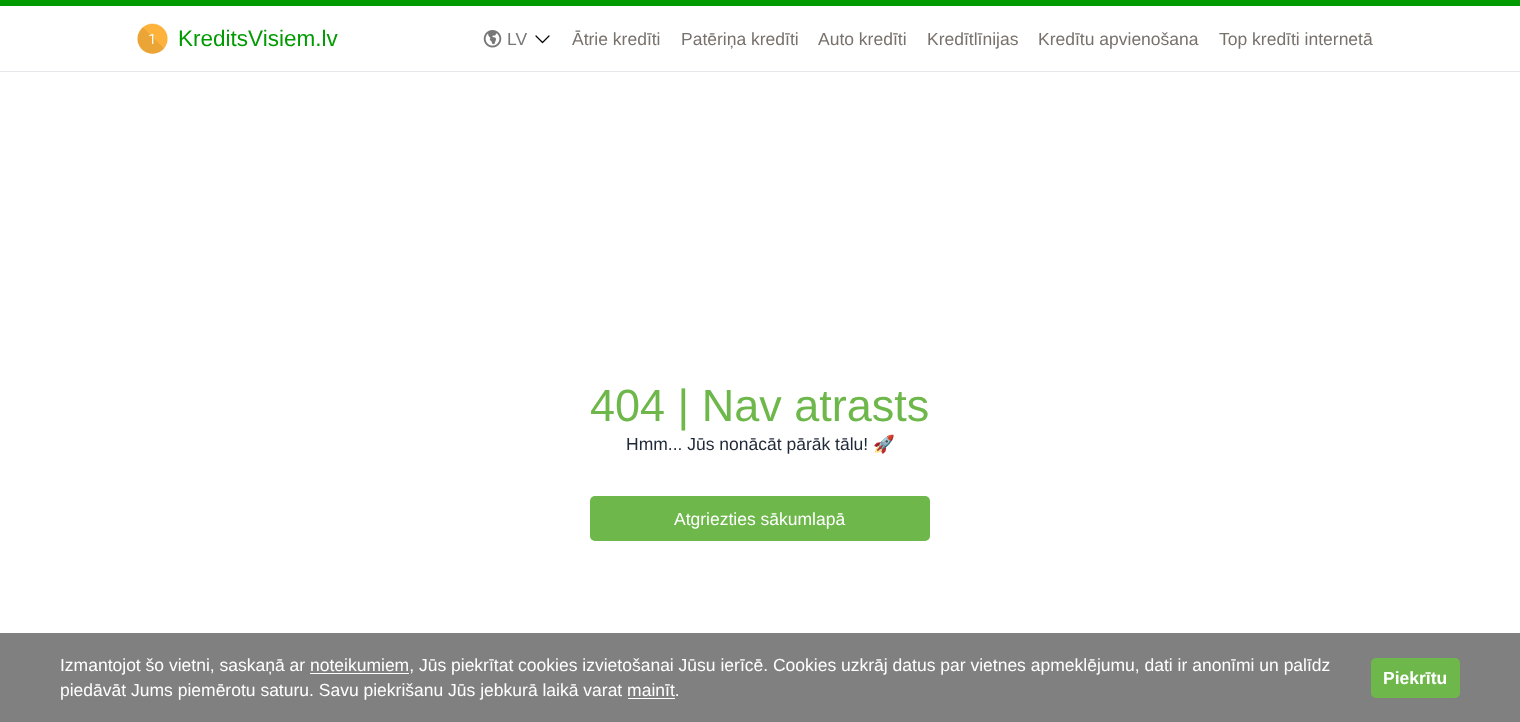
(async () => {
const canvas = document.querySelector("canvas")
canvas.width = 1520
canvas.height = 722
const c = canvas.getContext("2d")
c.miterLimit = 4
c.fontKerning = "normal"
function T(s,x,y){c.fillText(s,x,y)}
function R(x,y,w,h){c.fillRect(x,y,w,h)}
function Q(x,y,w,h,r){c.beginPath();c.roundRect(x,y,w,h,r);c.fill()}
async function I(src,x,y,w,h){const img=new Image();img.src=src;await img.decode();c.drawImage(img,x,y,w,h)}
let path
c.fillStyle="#fff"
R(0,0,1520,722)
c.fillStyle="#e5e7eb"
R(0,71,1520,1)
c.fillStyle="#009b00"
R(0,0,1520,6)
await I("1.png",137,23,31,31)
c.font="22.5px Liberation Sans"
T("KreditsVisiem.lv",178,46)
await I("2.png",483,30,19,18)
c.font="17.5px Liberation Sans"
c.fillStyle="#777"
T("LV",507,45)
path = new Path2D("M549 36l-6.5 6.5l-6.5-6.5")
c.strokeStyle="#000"
c.lineWidth=1.2
c.lineCap="round"
c.lineJoin="round"
c.stroke(path)
c.fillStyle="#78716c"
T("Ātrie kredīti",572,45)
T("Patēriņa kredīti",681,45)
T("Auto kredīti",818,45)
T("Kredītlīnijas",927,45)
T("Kredītu apvienošana",1038,45)
T("Top kredīti internetā",1219,45)
c.font="45px Liberation Sans"
c.fillStyle="#6eb74b"
T("404 | Nav atrasts",590,421)
c.font="17.5px Liberation Sans"
c.fillStyle="#1f2937"
T("Hmm... Jūs nonācāt pārāk tālu!",626,450)
c.font="17.5px Noto Color Emoji"
T("🚀",873,450)
c.fillStyle="#6eb74b"
Q(590,496,340,45,5)
c.font="17.5px Liberation Sans"
c.fillStyle="#fff"
T("Atgriezties sākumlapā",674,525)
c.fillStyle="#808080"
R(0,633,1520,89)
c.fillStyle="#fff"
T("Izmantojot šo vietni, saskaņā ar noteikumiem, Jūs piekrītat cookies izvietošanai Jūsu ierīcē. Cookies uzkrāj datus par vietnes apmeklējumu, dati ir anonīmi un palīdz",60,671)
R(310,673,99,1)
T("piedāvāt Jums piemērotu saturu. Savu piekrišanu Jūs jebkurā laikā varat mainīt.",60,696)
R(628,698,47,1)
c.fillStyle="#6eb74b"
Q(1371,658,89,40,5)
c.font="bold 17.5px Liberation Sans"
c.fillStyle="#fff"
T("Piekrītu",1383,684)
})()
